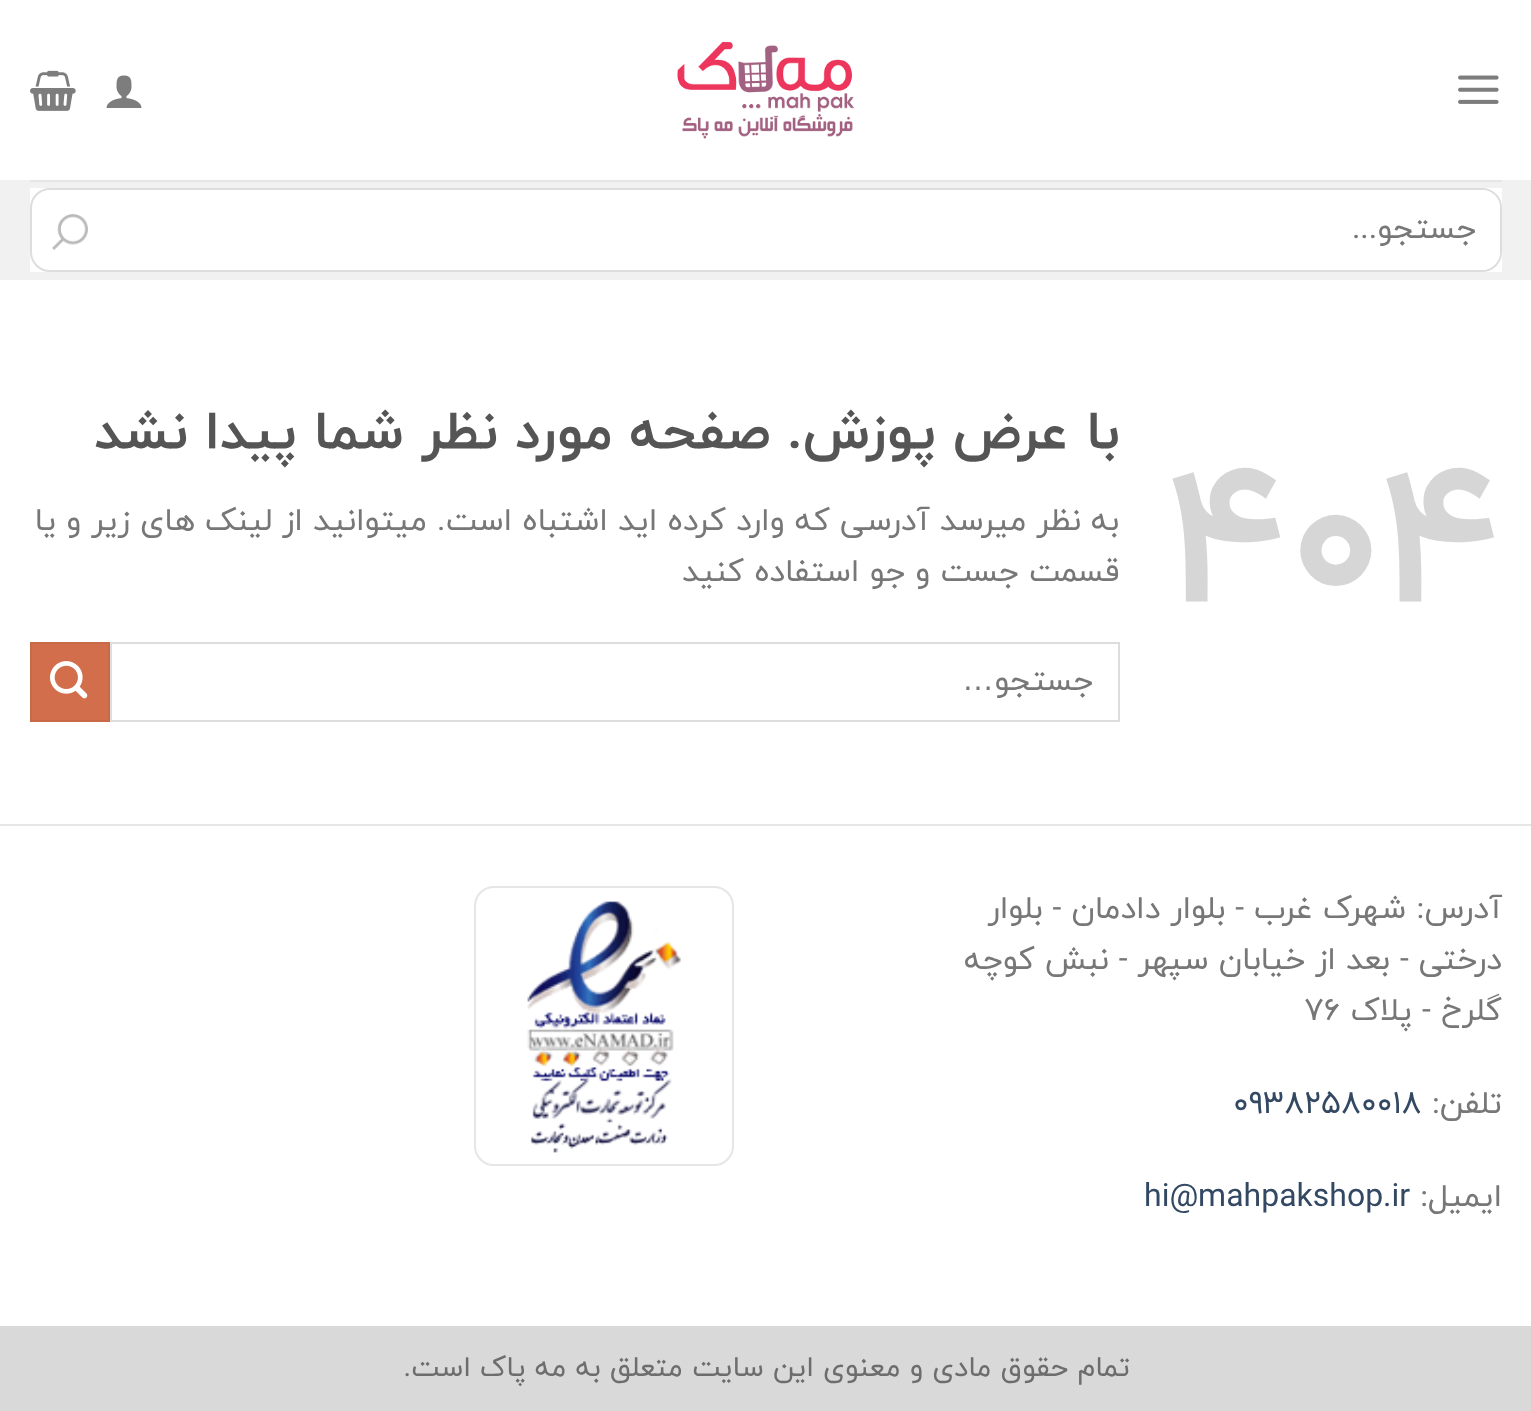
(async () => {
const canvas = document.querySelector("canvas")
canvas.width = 1531
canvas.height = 1411
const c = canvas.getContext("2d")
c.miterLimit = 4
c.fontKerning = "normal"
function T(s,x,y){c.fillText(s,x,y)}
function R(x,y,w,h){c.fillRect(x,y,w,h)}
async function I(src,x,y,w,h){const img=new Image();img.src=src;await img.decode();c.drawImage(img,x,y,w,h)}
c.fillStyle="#fff"
R(0,0,1531,1411)
await I("1.png",1458,75,41,29)
await I("2.png",677,41,178,98)
await I("3.png",106,75,36,33)
await I("4.png",30,70,46,41)
c.fillStyle="#f1f1f1"
R(0,180,1531,100)
c.fillStyle="#e5e5e5"
R(30,180,1472,2)
c.fillStyle="#fff"
R(30,188,1472,84)
c.beginPath()
c.roundRect(31,189,1470,82,19)
c.strokeStyle="#ddd"
c.lineWidth=2
c.stroke()
c.beginPath()
c.roundRect(146,190,1354,80,[0,18,18,0])
c.fill()
c.direction="rtl"
c.font="32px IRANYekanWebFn"
c.fillStyle="#777"
T("جستجو...",1476,238)
await I("5.png",52,214,36,36)
c.direction="ltr"
c.font="bold 192px IRANYekanWebFn"
c.fillStyle="#d6d6d6"
T("404",1169,600)
c.direction="rtl"
c.font="bold 54.4px IRANYekanWebFn"
c.fillStyle="#555"
T("با عرض پوزش. صفحه مورد نظر شما پیدا نشد",1119,448)
c.font="32px IRANYekanWebFn"
c.fillStyle="#777"
T("به نظر میرسد آدرسی که وارد کرده اید اشتباه است. میتوانید از لینک های زیر و یا",1119,530)
T("قسمت جست و جو استفاده کنید",1119,581)
c.strokeRect(111,643,1008,78)
T("جستجو",1093,690)
c.font="32px Liberation Sans"
T("…",994,690)
c.fillStyle="#d26e4b"
c.beginPath()
c.rect(31,643,78,78)
c.fill()
c.strokeStyle="#c86947"
c.stroke()
await I("6.png",50,661,38,38)
c.fillStyle="#e6e6e6"
R(0,824,1531,2)
c.font="32px IRANYekanWebFn"
c.fillStyle="#777"
T("آدرس:",1502,918)
T("شهرک غرب - بلوار دادمان - بلوار",1406,918)
T("درختی - بعد از خیابان سپهر - نبش کوچه",1502,969)
T("گلرخ - پلاک",1502,1020)
c.direction="ltr"
T("۷۶",1304,1020)
c.direction="rtl"
T("تلفن:",1502,1113)
c.direction="ltr"
c.fillStyle="#334862"
T("09382580018",1233,1113)
c.direction="rtl"
c.fillStyle="#777"
T("ایمیل:",1502,1206)
c.direction="ltr"
c.fillStyle="#334862"
T("hi@mahpakshop.ir",1144,1206)
c.beginPath()
c.roundRect(475,887,258,278,19)
c.strokeStyle="#e6e6e6"
c.stroke()
await I("7.png",527,901,154,252)
c.fillStyle="#d9d9d9"
R(0,1326,1531,85)
c.direction="rtl"
c.font="28.8px IRANYekanWebFn"
c.fillStyle="#6d6d6d"
T("تمام حقوق مادی و معنوی این سایت متعلق به مه پاک است.",1130,1376)
})()
